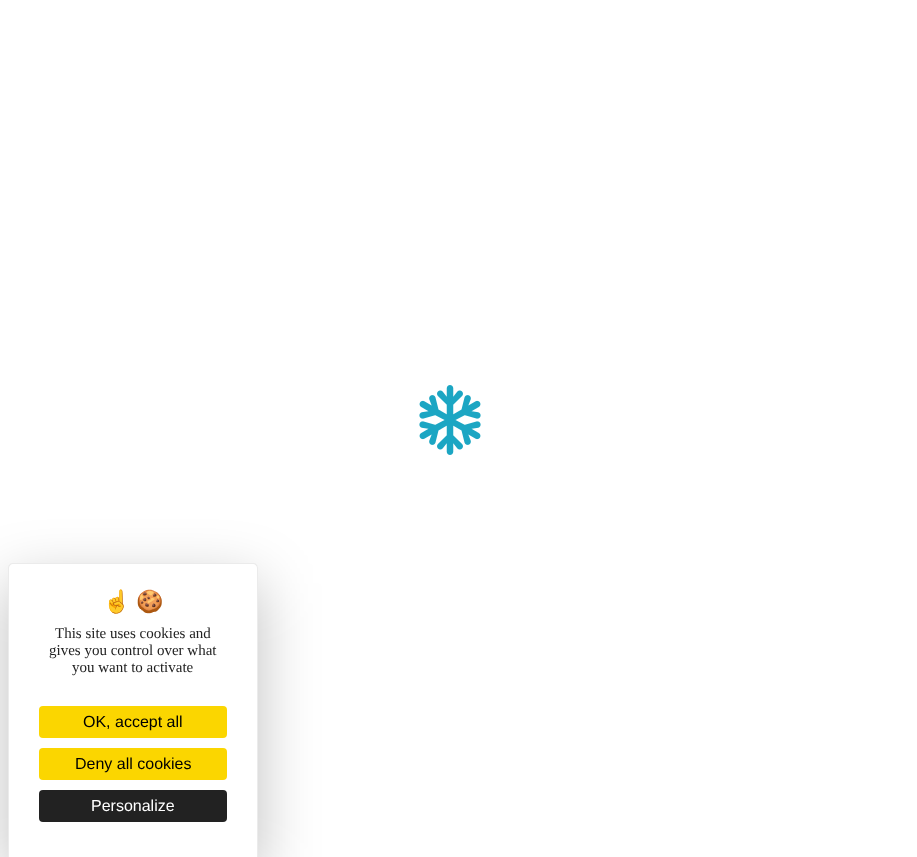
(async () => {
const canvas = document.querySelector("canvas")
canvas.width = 917
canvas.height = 857
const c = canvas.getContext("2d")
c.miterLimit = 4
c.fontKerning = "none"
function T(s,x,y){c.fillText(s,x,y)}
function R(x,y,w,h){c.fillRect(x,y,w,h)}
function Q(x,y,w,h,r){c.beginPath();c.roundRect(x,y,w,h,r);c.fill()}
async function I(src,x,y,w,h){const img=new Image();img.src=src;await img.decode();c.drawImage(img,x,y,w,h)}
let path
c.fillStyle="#fff"
R(0,0,917,857)
await I("1.png",419,385,62,70)
c.fillStyle="#00000040"
c.filter="blur(30px)"
c.beginPath()
c.roundRect(8,583,250,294,5)
c.fill()
c.filter="none"
c.fillStyle="#fff"
c.beginPath()
c.roundRect(8,563,250,294,[5,5,0,0])
c.fill()
c.fillStyle="#ebebeb"
path = new Path2D("M13 563h240c3 0 5 2 5 5v289h-250v-289c0-3 2-5 5-5zm0 1h240c2 0 4 2 4 4v289h-248v-289c0-2 2-4 4-4z")
c.fill(path,"evenodd")
c.font="22px Noto Color Emoji"
c.fillStyle="#222"
T("☝️",103,609)
T("🍪",136,609)
c.font="15px Liberation Serif"
T("This site uses cookies and",55,638)
T("gives you control over what",49,655)
T("you want to activate",72,672)
c.fillStyle="#fbd600"
Q(39,706,188,32,4)
c.font="16px Liberation Sans"
c.fillStyle="#000"
T("OK, accept all",83,727)
c.fillStyle="#fbd600"
Q(39,748,188,32,4)
c.fillStyle="#000"
T("Deny all cookies",75,769)
c.fillStyle="#222"
Q(39,790,188,32,4)
c.fillStyle="#fff"
T("Personalize",91,811)
})()
